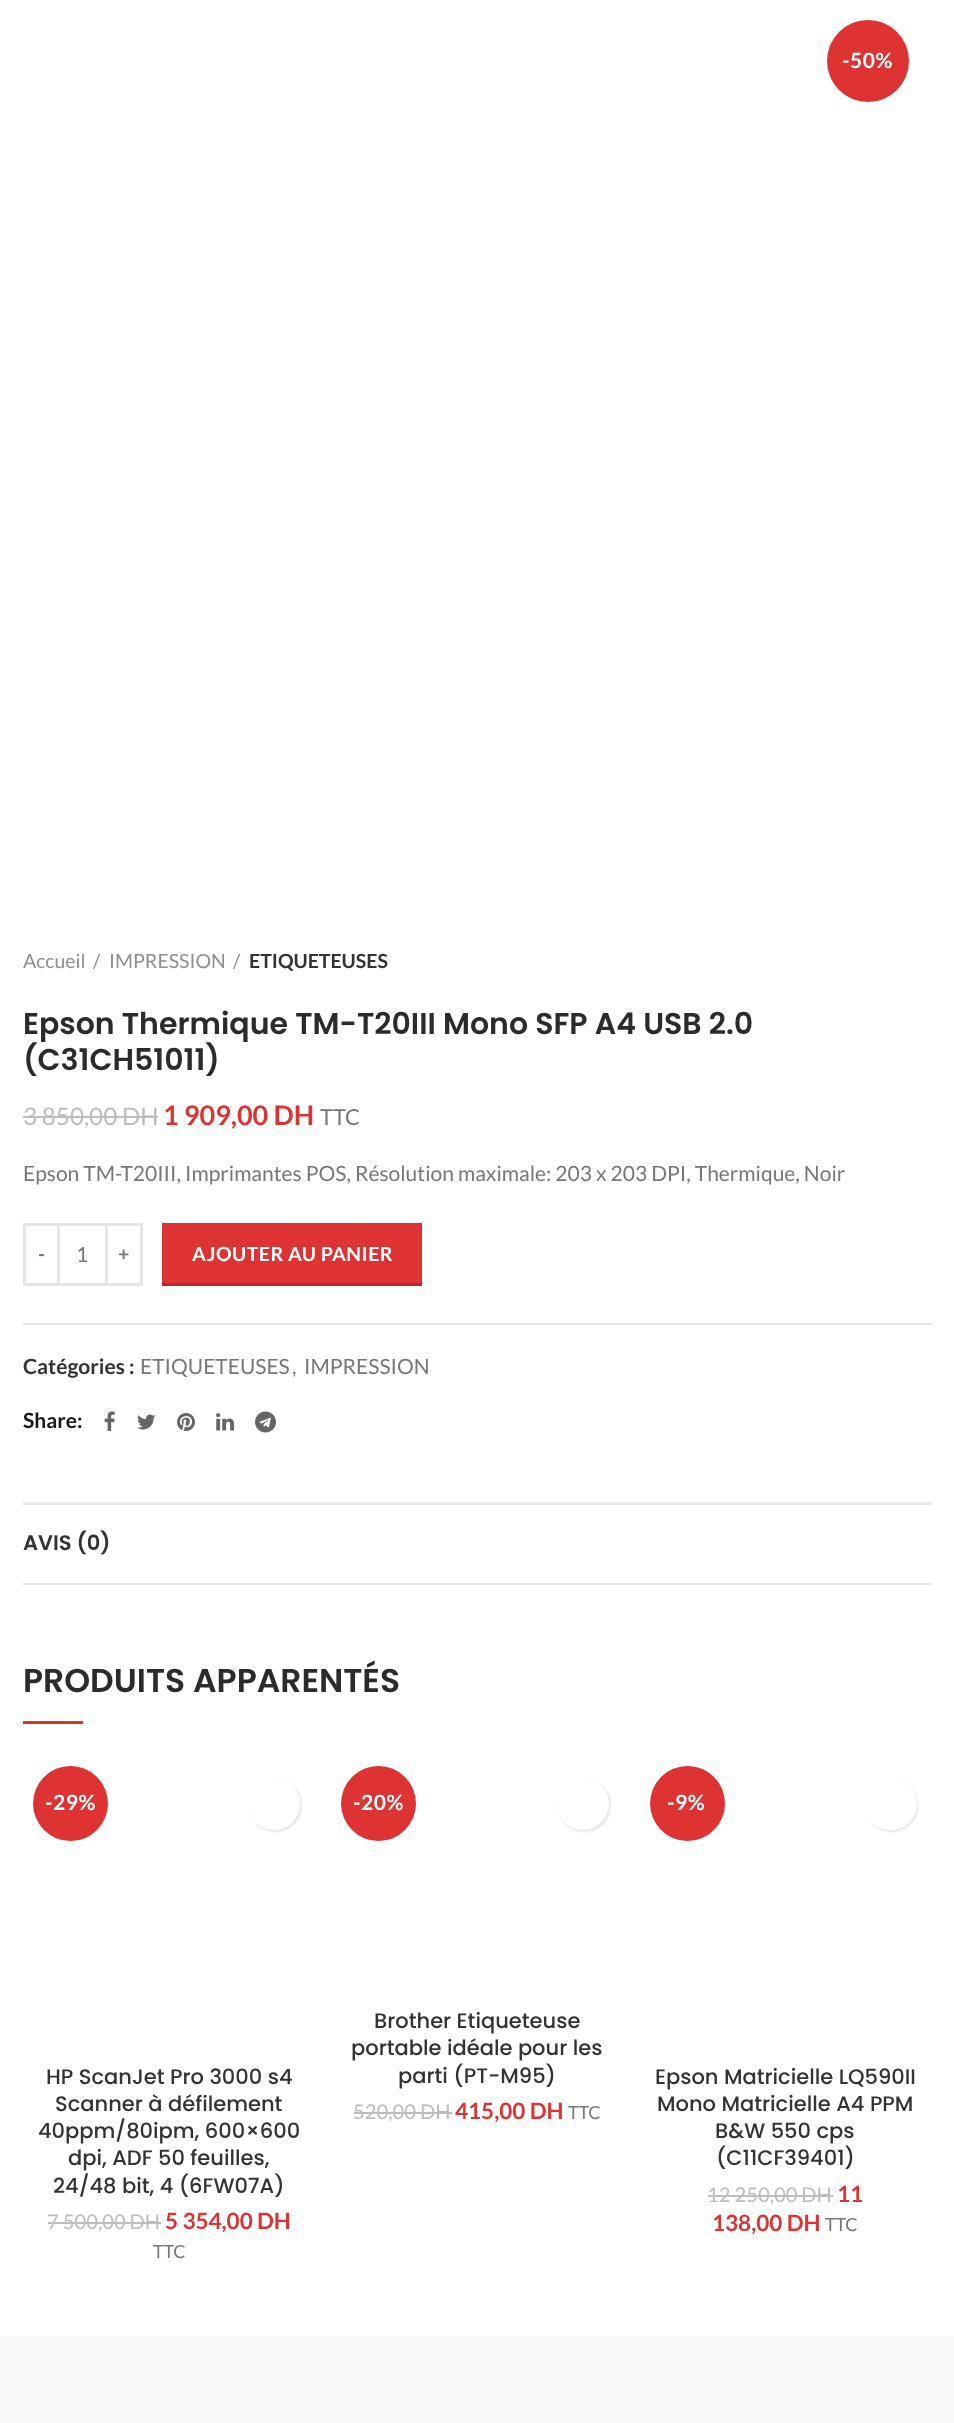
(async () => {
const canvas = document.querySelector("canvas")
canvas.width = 954
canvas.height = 2423
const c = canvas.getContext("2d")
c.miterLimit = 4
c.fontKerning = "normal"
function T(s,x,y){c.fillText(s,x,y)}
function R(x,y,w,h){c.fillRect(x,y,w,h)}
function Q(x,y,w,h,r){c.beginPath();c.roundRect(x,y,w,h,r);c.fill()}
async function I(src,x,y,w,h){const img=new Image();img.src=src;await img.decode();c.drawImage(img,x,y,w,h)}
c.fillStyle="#fff"
R(0,0,954,2423)
c.fillStyle="#d33"
c.beginPath()
c.arc(868,61,41,0,7)
c.fill()
c.letterSpacing="0.5px"
c.font="bold 21px Lato"
c.fillStyle="#fff"
T("-50%",842,68)
c.letterSpacing="0px"
c.font="19.5px Lato"
c.fillStyle="#8e8e8e"
T("Accueil",23,968)
T("/",93,968)
T("IMPRESSION",109,968)
T("/",233,968)
c.font="bold 19.5px Lato"
c.fillStyle="#333"
T("ETIQUETEUSES",249,968)
c.font="600 30px Poppins"
c.fillStyle="#2d2a2a"
T("Epson Thermique TM-T20III Mono SFP A4 USB 2.0",23,1034)
T("(C31CH51011)",23,1070)
c.font="24.25px Lato"
c.fillStyle="#bdbdbd"
T("3 850,00 DH",23,1125)
R(23,1116,135,2)
c.font="bold 27px Lato"
c.fillStyle="#d33"
T("1 909,00 DH",163,1125)
c.font="22px Lato"
c.fillStyle="#777"
T("TTC",320,1125)
c.font="21px Lato"
T("Epson TM-T20III, Imprimantes POS, Résolution maximale: 203 x 203 DPI, Thermique, Noir",23,1181)
c.strokeStyle="#e6e6e6"
c.lineWidth=3
c.strokeRect(24.5,1224.5,34,60)
c.letterSpacing="0.5px"
c.font="bold 19.5px Lato"
T("-",38,1261)
c.fillStyle="#e6e6e6"
R(60,1223,45,3)
R(60,1283,45,3)
c.letterSpacing="0px"
c.font="21px Lato"
c.fillStyle="#777"
T("1",76,1262)
c.strokeRect(106.5,1224.5,35,60)
c.letterSpacing="0.5px"
c.font="bold 19.5px Lato"
T("+",118,1261)
c.fillStyle="#d33"
R(162,1223,260,60)
c.fillStyle="#bc2b2b"
R(162,1283,260,3)
c.fillStyle="#fff"
T("AJOUTER AU PANIER",192,1261)
c.fillStyle="#e6e6e6"
R(23,1323,909,2)
c.letterSpacing="0px"
c.font="bold 21px Lato"
c.fillStyle="#333"
T("Catégories :",23,1374)
c.font="21px Lato"
c.fillStyle="#777"
T("ETIQUETEUSES",140,1374)
T(",",292,1374)
T("IMPRESSION",304,1374)
c.font="bold 21px Lato"
c.fillStyle="#1b1919"
T("Share:",23,1428)
await I("1.png",104,1411,11,20)
await I("2.png",137,1414,19,16)
await I("3.png",177,1413,18,18)
await I("4.png",216,1413,18,18)
await I("5.png",255,1411,21,22)
c.fillStyle="#e8e8e8"
R(23,1502,909,3)
R(23,1583,909,2)
c.font="600 21px Poppins"
c.fillStyle="#333"
T("AVIS (0)",23,1550)
c.font="600 33px Poppins"
c.fillStyle="#2d2a2a"
T("PRODUITS APPARENTÉS",23,1692)
c.fillStyle="#d33"
R(23,1721,60,3)
c.beginPath()
c.arc(70.5,1803.5,37.5,0,7)
c.fill()
c.letterSpacing="0.5px"
c.font="bold 21px Lato"
c.fillStyle="#fff"
T("-29%",45,1810)
c.fillStyle="#0000001a"
c.filter="blur(1px)"
c.beginPath()
c.roundRect(249,1779,53,53,26.5)
c.fill()
c.filter="none"
c.fillStyle="#fff"
c.beginPath()
c.arc(274,1804,26,0,7)
c.fill()
c.letterSpacing="0px"
c.font="500 21px Poppins"
c.fillStyle="#333"
T("HP ScanJet Pro 3000 s4",46,2084)
T("Scanner à défilement",55,2111)
T("40ppm/80ipm, 600×600",38,2138)
T("dpi, ADF 50 feuilles,",68,2165)
T("24/48 bit, 4 (6FW07A)",53,2193)
c.font="20.25px Lato"
c.fillStyle="#bdbdbd"
T("7 500,00 DH",47,2229)
R(48,2222,113,2)
c.font="bold 22.5px Lato"
c.fillStyle="#d33"
T("5 354,00 DH",165,2229)
c.font="18px Lato"
c.fillStyle="#777"
T("TTC",153,2258)
c.fillStyle="#d33"
c.beginPath()
c.arc(378.5,1803.5,37.5,0,7)
c.fill()
c.letterSpacing="0.5px"
c.font="bold 21px Lato"
c.fillStyle="#fff"
T("-20%",353,1810)
c.fillStyle="#0000001a"
c.filter="blur(1px)"
c.beginPath()
c.roundRect(558,1779,53,53,26.5)
c.fill()
c.filter="none"
c.fillStyle="#fff"
c.beginPath()
c.arc(583,1804,26,0,7)
c.fill()
c.letterSpacing="0px"
c.font="500 21px Poppins"
c.fillStyle="#333"
T("Brother Etiqueteuse",374,2028)
T("portable idéale pour les",351,2055)
T("parti (PT-M95)",398,2083)
c.font="20.25px Lato"
c.fillStyle="#bdbdbd"
T("520,00 DH",353,2119)
R(354,2112,98,2)
c.font="bold 22.5px Lato"
c.fillStyle="#d33"
T("415,00 DH",455,2119)
c.font="18px Lato"
c.fillStyle="#777"
T("TTC",568,2119)
c.fillStyle="#d33"
c.beginPath()
c.arc(687.5,1803.5,37.5,0,7)
c.fill()
c.letterSpacing="0.5px"
c.font="bold 21px Lato"
c.fillStyle="#fff"
T("-9%",667,1810)
c.fillStyle="#0000001a"
c.filter="blur(1px)"
c.beginPath()
c.roundRect(866,1779,52,53,26)
c.fill()
c.filter="none"
c.fillStyle="#fff"
Q(864,1778,53,52,26)
c.letterSpacing="0px"
c.font="500 21px Poppins"
c.fillStyle="#333"
T("Epson Matricielle LQ590II",655,2084)
T("Mono Matricielle A4 PPM",657,2111)
T("B&W 550 cps",715,2138)
T("(C11CF39401)",716,2165)
c.font="20.25px Lato"
c.fillStyle="#bdbdbd"
T("12 250,00 DH",707,2202)
R(708,2195,125,2)
c.font="bold 22.5px Lato"
c.fillStyle="#d33"
T("11",837,2202)
T("138,00 DH",712,2231)
c.font="18px Lato"
c.fillStyle="#777"
T("TTC",825,2231)
c.fillStyle="#f9f9f9"
R(0,2337,954,86)
})()
